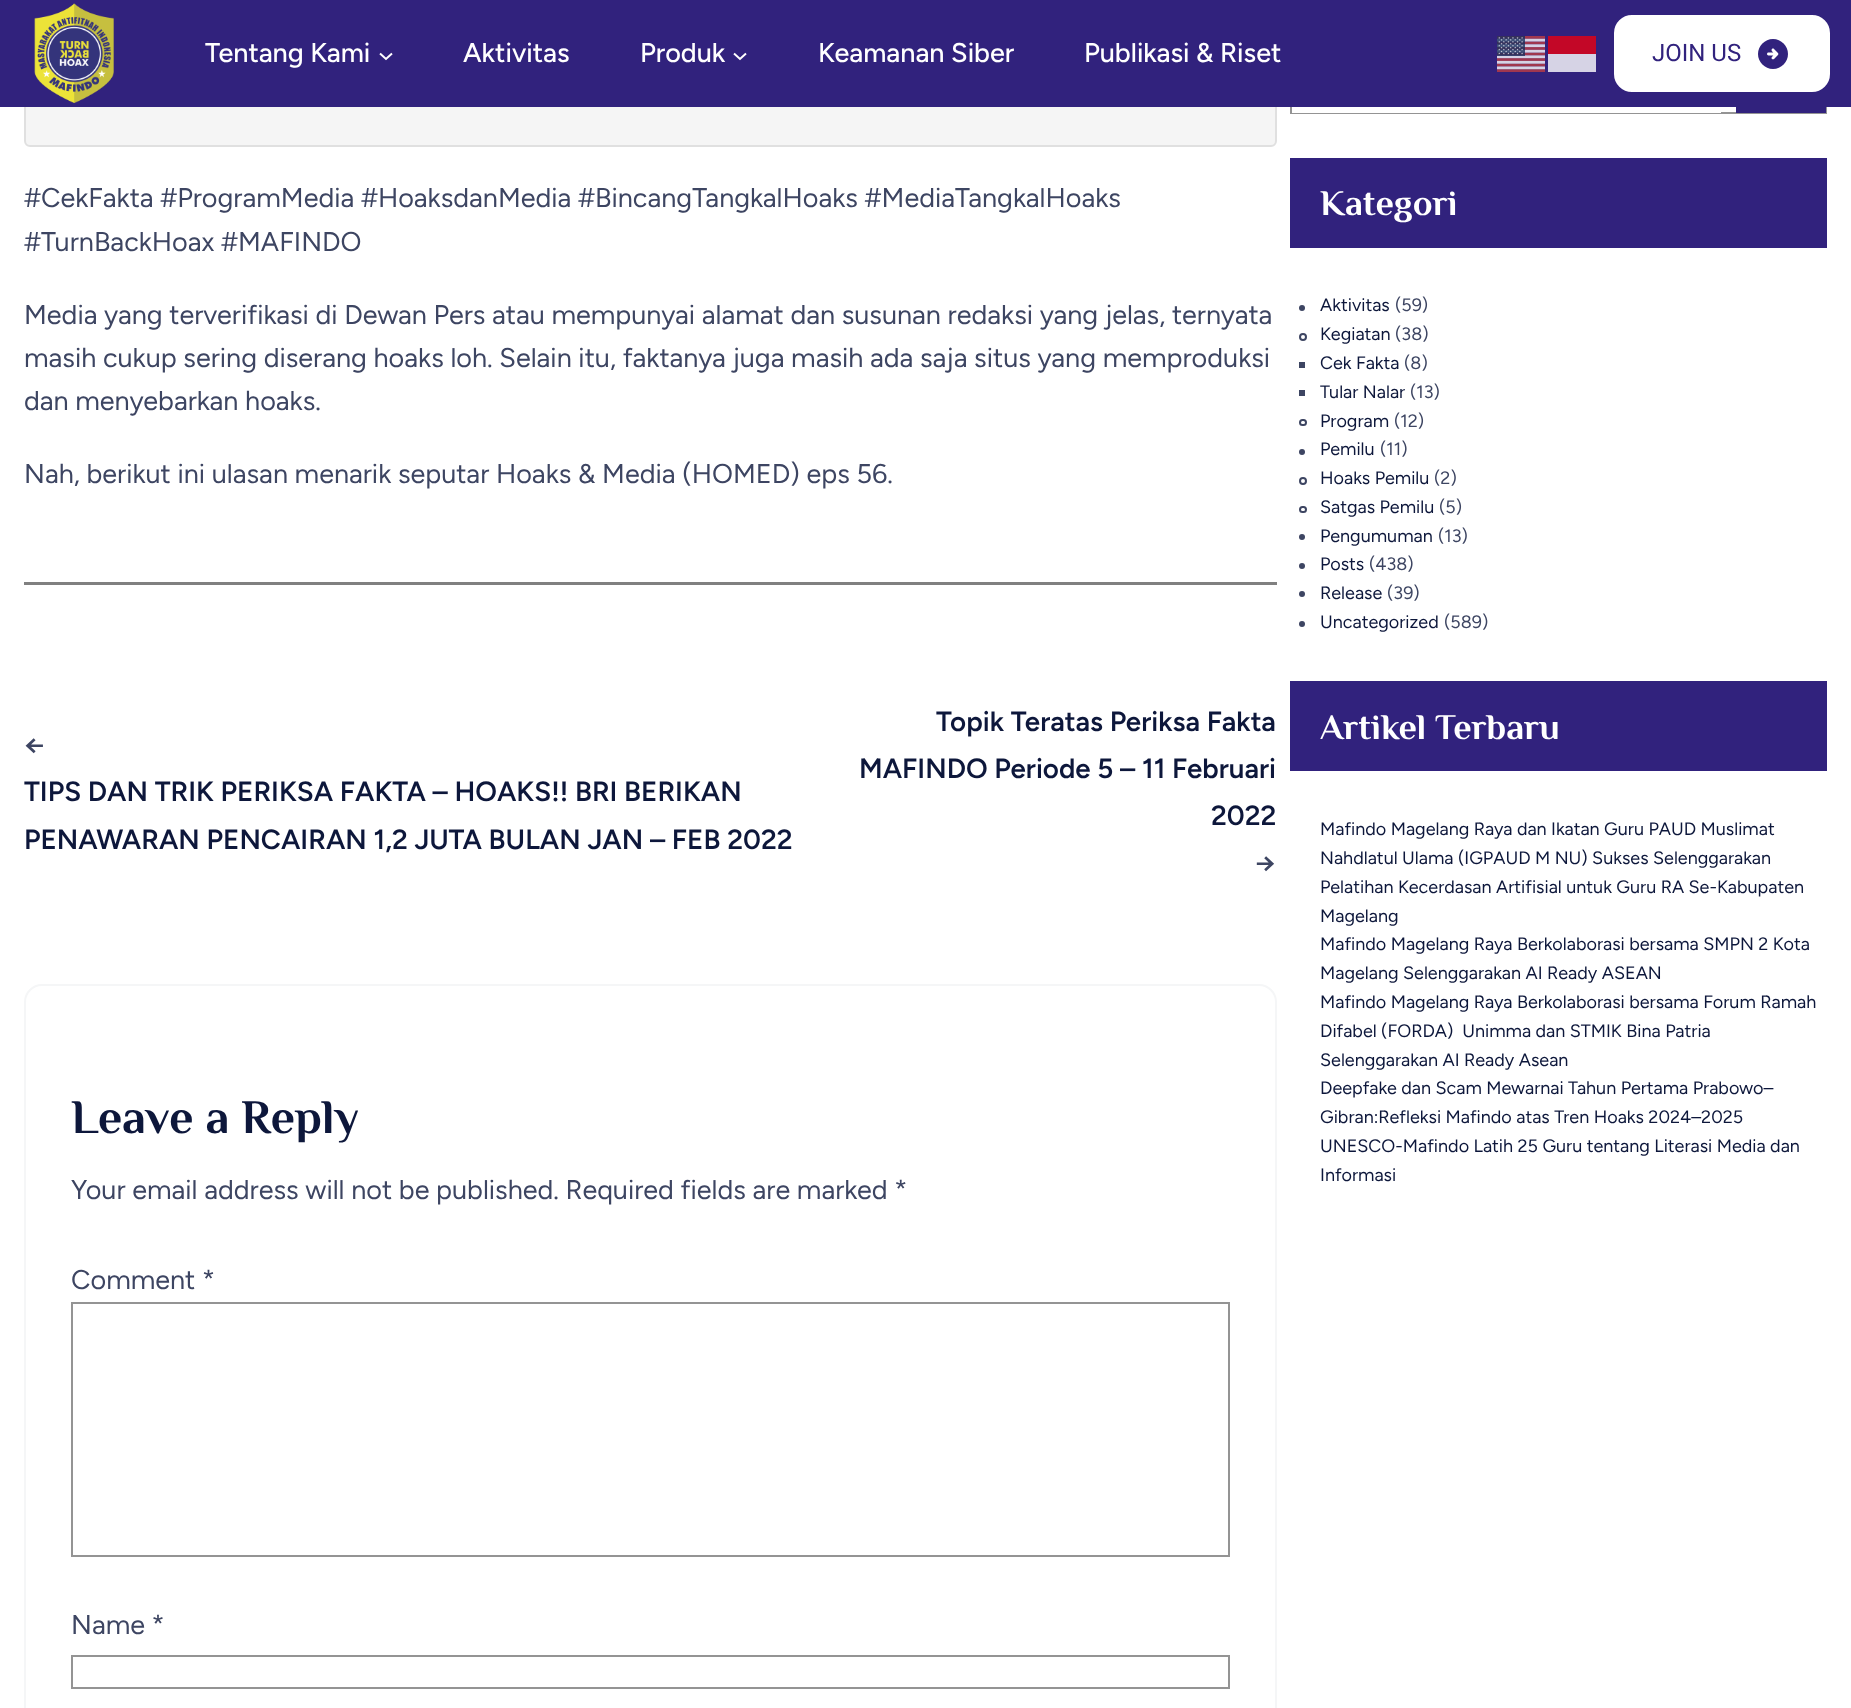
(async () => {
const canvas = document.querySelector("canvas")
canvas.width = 1851
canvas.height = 1708
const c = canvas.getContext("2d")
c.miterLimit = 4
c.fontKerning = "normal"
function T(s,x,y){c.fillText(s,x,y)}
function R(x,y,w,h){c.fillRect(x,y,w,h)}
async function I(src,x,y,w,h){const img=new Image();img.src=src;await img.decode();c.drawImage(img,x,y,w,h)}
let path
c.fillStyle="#fff"
R(0,0,1851,1708)
c.fillStyle="#f5f5f5"
c.beginPath()
c.roundRect(25,-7,1251,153,5)
c.fill()
c.strokeStyle="#e0e0e0"
c.lineWidth=2
c.stroke()
c.strokeStyle="#949494"
c.strokeRect(1291,46,535,67)
c.fillStyle="#31227d"
R(0,0,1851,107)
await I("1.png",34,3,80,100)
c.font="500 27px Figtree"
c.fillStyle="#fff"
T("Tentang Kami",205,62)
path = new Path2D("M380 53.5l6 5.5l6-5.5")
c.strokeStyle="#fff"
c.stroke(path)
T("Aktivitas",463,62)
T("Produk",640,62)
path = new Path2D("M734 53.5l6 5.5l6-5.5")
c.stroke(path)
T("Keamanan Siber",818,62)
T("Publikasi & Riset",1084,62)
await I("2.png",1497,36,48,36)
c.fillStyle="#c30727"
R(1548,36,48,18)
c.fillStyle="#d6d3e5"
R(1548,54,48,18)
c.fillStyle="#fff"
c.beginPath()
c.roundRect(1615,16,214,75,17)
c.fill()
c.stroke()
c.font="24px Roboto"
c.fillStyle="#31227d"
T("JOIN US",1652,61)
await I("3.png",1758,39,30,30)
c.font="27px Figtree"
c.fillStyle="#3d4562"
T("#CekFakta #ProgramMedia #HoaksdanMedia #BincangTangkalHoaks #MediaTangkalHoaks",24,207)
T("#TurnBackHoax #MAFINDO",24,251)
T("Media yang terverifikasi di Dewan Pers atau mempunyai alamat dan susunan redaksi yang jelas, ternyata",24,324)
T("masih cukup sering diserang hoaks loh. Selain itu, faktanya juga masih ada saja situs yang memproduksi",24,367)
T("dan menyebarkan hoaks.",24,410)
T("Nah, berikut ini ulasan menarik seputar Hoaks & Media (HOMED) eps 56.",24,483)
c.fillStyle="#808080"
R(24,582,1253,3)
c.font="600 27.75px Figtree"
c.fillStyle="#3d4562"
T("←",24,754)
c.fillStyle="#0d173b"
T("TIPS DAN TRIK PERIKSA FAKTA – HOAKS!! BRI BERIKAN",24,801)
T("PENAWARAN PENCAIRAN 1,2 JUTA BULAN JAN – FEB 2022",24,849)
T("Topik Teratas Periksa Fakta",936,731)
T("MAFINDO Periode 5 – 11 Februari",859,778)
T("2022",1211,825)
c.fillStyle="#3d4562"
T("→",1255,872)
c.beginPath()
c.roundRect(25,985,1251,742,17)
c.strokeStyle="#f5f6f7"
c.stroke()
c.font="bold 48px Philosopher"
c.fillStyle="#0d173b"
T("Leave a Reply",71,1133)
c.font="27px Figtree"
c.fillStyle="#3d4562"
T("Your email address will not be published. Required fields are marked *",71,1199)
T("Comment *",71,1289)
c.strokeStyle="#949494"
c.strokeRect(72,1303,1157,253)
T("Name *",71,1634)
c.strokeRect(72,1656,1157,32)
c.fillStyle="#fff"
R(1292,112,429,1)
c.fillStyle="#31227d"
R(1736,107,90,6)
R(1290,158,537,90)
c.font="bold 36px Philosopher"
c.fillStyle="#fff"
T("Kategori",1320,215)
c.fillStyle="#3d4562"
c.beginPath()
c.arc(1302,308,3,0,7)
c.fill()
c.font="18px Figtree"
c.fillStyle="#0d173b"
T("Aktivitas",1320,311)
c.fillStyle="#3d4562"
T("(59)",1395,311)
c.beginPath()
c.arc(1303,337,3,0,7)
c.strokeStyle="#3d4562"
c.stroke()
c.fillStyle="#0d173b"
T("Kegiatan",1320,340)
c.fillStyle="#3d4562"
T("(38)",1395,340)
R(1299,362,6,6)
c.fillStyle="#0d173b"
T("Cek Fakta",1320,369)
c.fillStyle="#3d4562"
T("(8)",1404,369)
R(1299,390,6,6)
c.fillStyle="#0d173b"
T("Tular Nalar",1320,398)
c.fillStyle="#3d4562"
T("(13)",1410,398)
c.beginPath()
c.roundRect(1300,420,6,5,2.5)
c.stroke()
c.fillStyle="#0d173b"
T("Program",1320,427)
c.fillStyle="#3d4562"
T("(12)",1394,427)
c.beginPath()
c.arc(1302,452,3,0,7)
c.fill()
c.fillStyle="#0d173b"
T("Pemilu",1320,455)
c.fillStyle="#3d4562"
T("(11)",1380,455)
c.beginPath()
c.arc(1303,481,3,0,7)
c.stroke()
c.fillStyle="#0d173b"
T("Hoaks Pemilu",1320,484)
c.fillStyle="#3d4562"
T("(2)",1434,484)
c.beginPath()
c.roundRect(1300,507,6,5,2.5)
c.stroke()
c.fillStyle="#0d173b"
T("Satgas Pemilu",1320,513)
c.fillStyle="#3d4562"
T("(5)",1439,513)
c.beginPath()
c.arc(1302,537,3,0,7)
c.fill()
c.fillStyle="#0d173b"
T("Pengumuman",1320,542)
c.fillStyle="#3d4562"
T("(13)",1438,542)
c.beginPath()
c.arc(1302,566,3,0,7)
c.fill()
c.fillStyle="#0d173b"
T("Posts",1320,570)
c.fillStyle="#3d4562"
T("(438)",1369,570)
c.beginPath()
c.arc(1302,594,3,0,7)
c.fill()
c.fillStyle="#0d173b"
T("Release",1320,599)
c.fillStyle="#3d4562"
T("(39)",1387,599)
c.beginPath()
c.arc(1302,624,3,0,7)
c.fill()
c.fillStyle="#0d173b"
T("Uncategorized",1320,628)
c.fillStyle="#3d4562"
T("(589)",1444,628)
c.fillStyle="#31227d"
R(1290,681,537,90)
c.font="bold 36px Philosopher"
c.fillStyle="#fff"
T("Artikel Terbaru",1320,739)
c.font="18px Figtree"
c.fillStyle="#0d173b"
T("Mafindo Magelang Raya dan Ikatan Guru PAUD Muslimat",1320,835)
T("Nahdlatul Ulama (IGPAUD M NU) Sukses Selenggarakan",1320,864)
T("Pelatihan Kecerdasan Artifisial untuk Guru RA Se-Kabupaten",1320,893)
T("Magelang",1320,922)
T("Mafindo Magelang Raya Berkolaborasi bersama SMPN 2 Kota",1320,950)
T("Magelang Selenggarakan AI Ready ASEAN",1320,979)
T("Mafindo Magelang Raya Berkolaborasi bersama Forum Ramah",1320,1008)
T("Difabel (FORDA)  Unimma dan STMIK Bina Patria",1320,1037)
T("Selenggarakan AI Ready Asean",1320,1066)
T("Deepfake dan Scam Mewarnai Tahun Pertama Prabowo–",1320,1094)
T("Gibran:Refleksi Mafindo atas Tren Hoaks 2024–2025",1320,1123)
T("UNESCO-Mafindo Latih 25 Guru tentang Literasi Media dan",1320,1152)
T("Informasi",1320,1181)
})()
